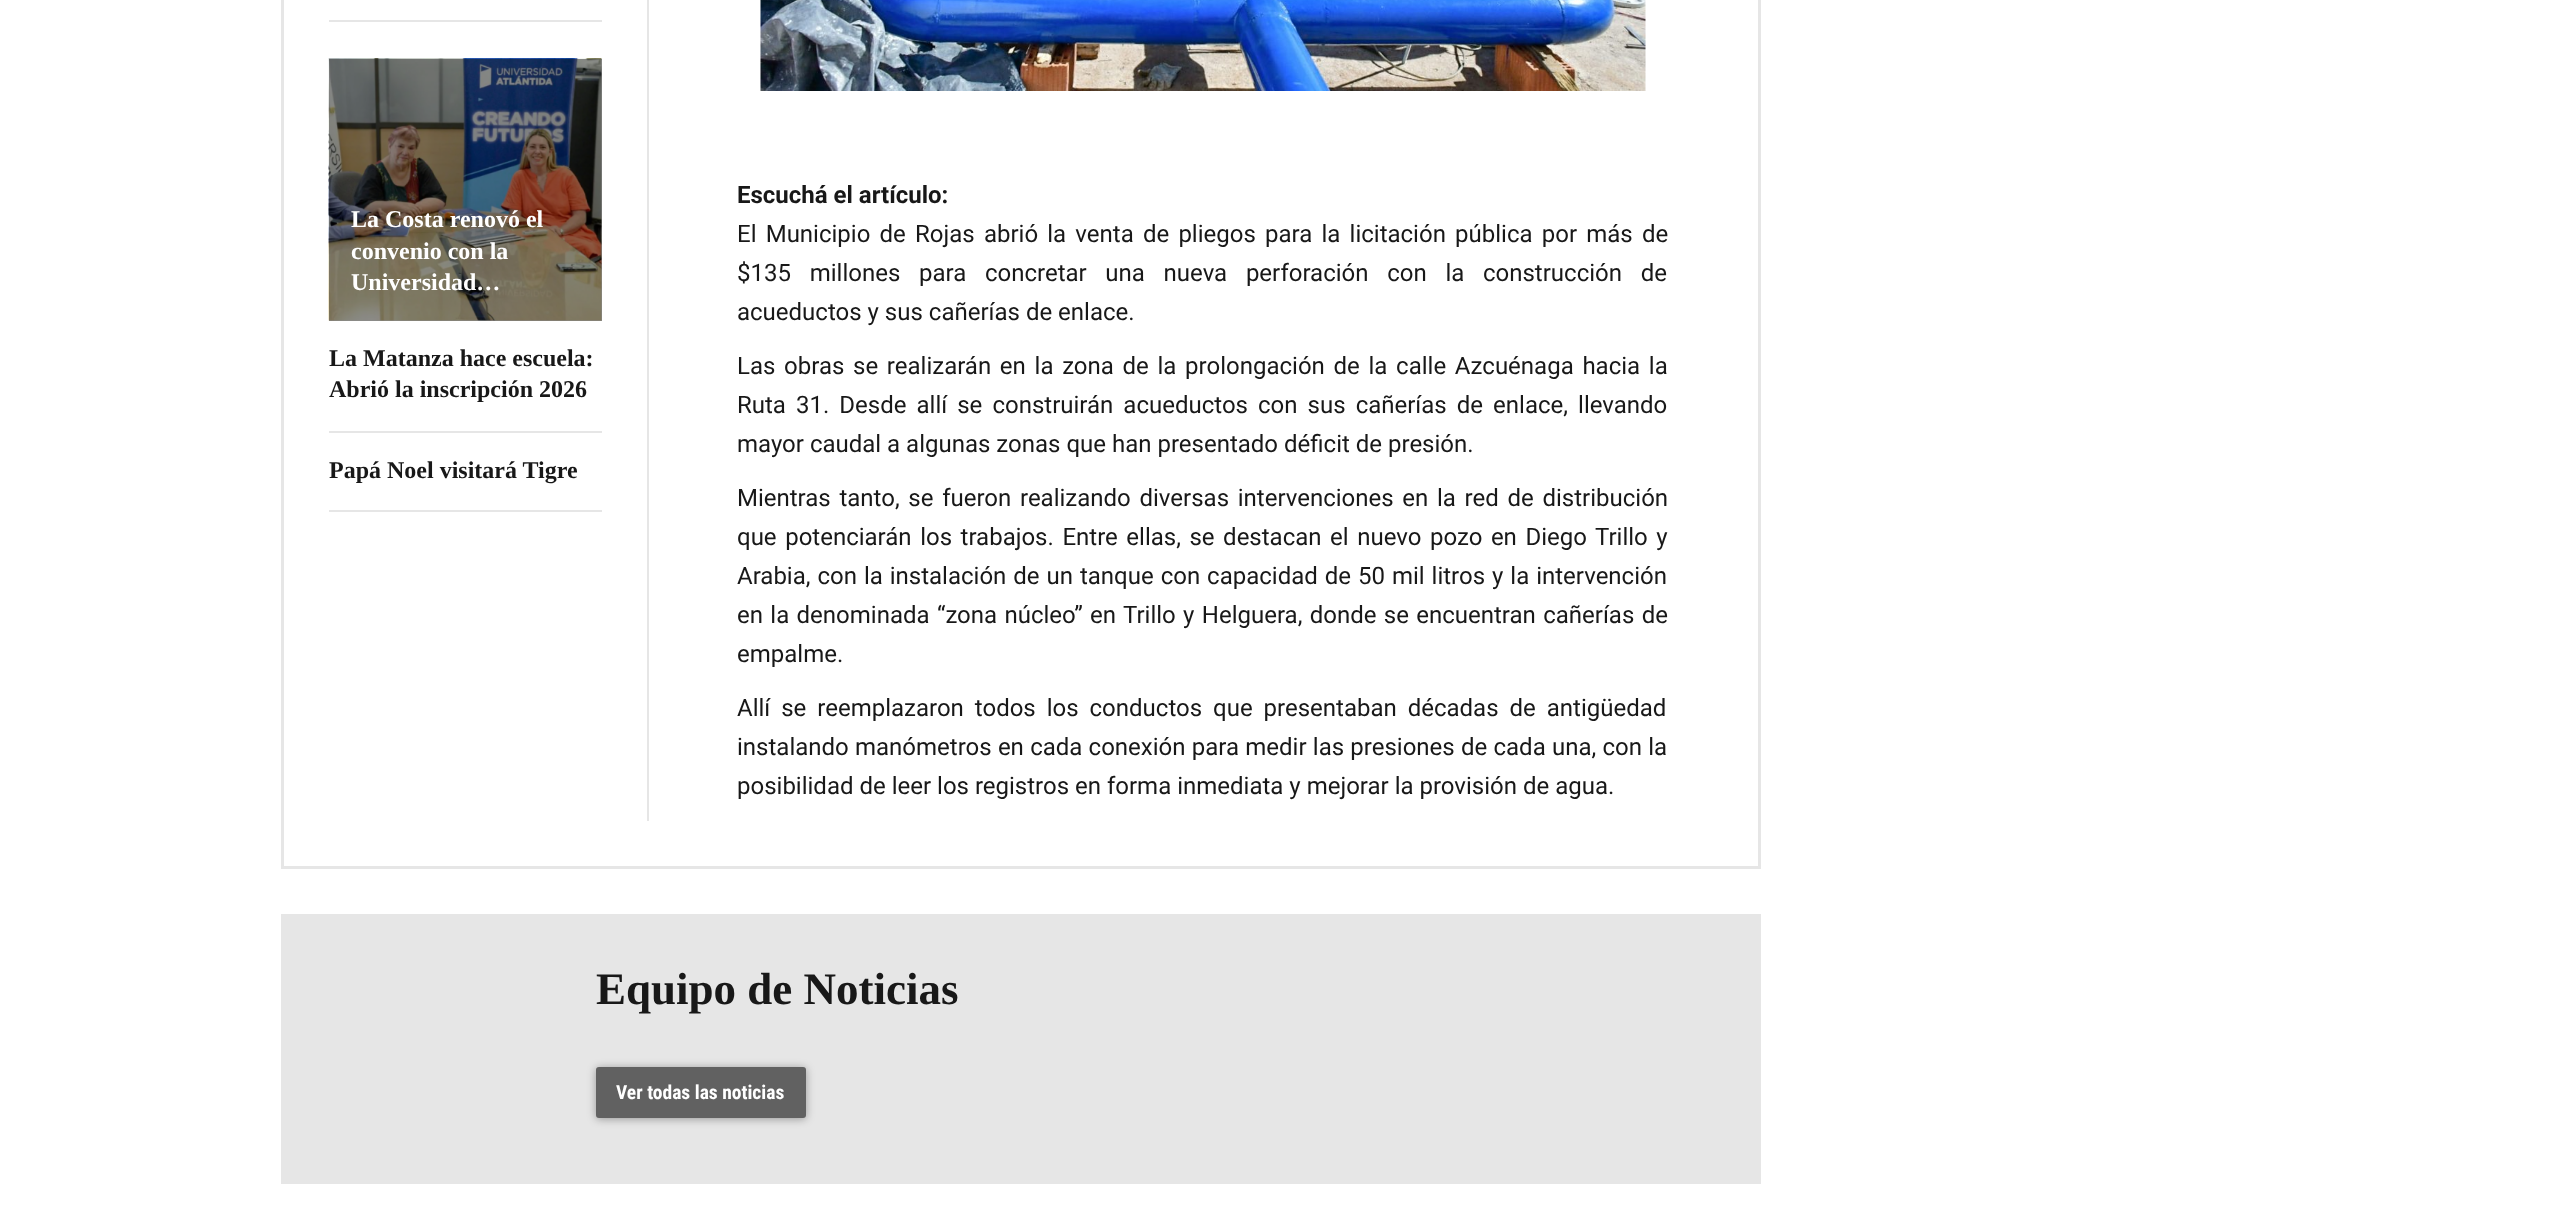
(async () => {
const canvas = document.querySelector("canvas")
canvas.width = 2549
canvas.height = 1226
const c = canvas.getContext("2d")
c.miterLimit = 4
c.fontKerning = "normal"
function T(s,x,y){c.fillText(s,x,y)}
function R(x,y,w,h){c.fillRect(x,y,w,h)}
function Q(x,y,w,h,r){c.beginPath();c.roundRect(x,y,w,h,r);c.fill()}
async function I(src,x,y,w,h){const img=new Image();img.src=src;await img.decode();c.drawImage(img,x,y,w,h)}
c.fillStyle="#fff"
R(0,0,2549,1226)
c.fillStyle="#8c8c8c"
R(329,59,273,262)
c.strokeStyle="#e6e6e6"
c.lineWidth=3
c.strokeRect(282.5,-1.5,1477,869)
c.fillStyle="#e6e6e6"
R(329,20,273,2)
await I("1.png",328,58,274,263)
c.font="bold 24px Liberation Serif"
c.fillStyle="#fff"
T("La Costa renovó el",351,227)
T("convenio con la",351,259)
T("Universidad…",351,290)
c.fillStyle="#181818"
T("La Matanza hace escuela:",329,366)
T("Abrió la inscripción 2026",329,397)
c.fillStyle="#e6e6e6"
R(329,431,273,2)
c.fillStyle="#181818"
T("Papá Noel visitará Tigre",329,478)
c.fillStyle="#e6e6e6"
R(329,510,273,2)
R(647,0,2,821)
await I("2.png",760,0,886,91)
c.font="bold 24px Roboto"
c.fillStyle="#181818"
T("Escuchá el artículo:",737,203)
c.wordSpacing="3.25px"
c.font="24px Roboto"
T("El Municipio de Rojas abrió la venta de pliegos para la licitación pública por más de",737,242)
c.wordSpacing="12.75px"
T("$135 millones para concretar una nueva perforación con la construcción de",737,281)
c.wordSpacing="0px"
T("acueductos y sus cañerías de enlace.",737,320)
c.wordSpacing="2.75px"
T("Las obras se realizarán en la zona de la prolongación de la calle Azcuénaga hacia la",737,374)
c.wordSpacing="4.1px"
T("Ruta 31. Desde allí se construirán acueductos con sus cañerías de enlace, llevando",737,413)
c.wordSpacing="0px"
T("mayor caudal a algunas zonas que han presentado déficit de presión.",737,452)
c.wordSpacing="2.75px"
T("Mientras tanto, se fueron realizando diversas intervenciones en la red de distribución",737,506)
c.wordSpacing="2.6px"
T("que potenciarán los trabajos. Entre ellas, se destacan el nuevo pozo en Diego Trillo y",737,545)
c.wordSpacing="1px"
T("Arabia, con la instalación de un tanque con capacidad de 50 mil litros y la intervención",737,584)
c.wordSpacing="1.4px"
T("en la denominada “zona núcleo” en Trillo y Helguera, donde se encuentran cañerías de",737,623)
c.wordSpacing="0px"
T("empalme.",737,662)
c.wordSpacing="5px"
T("Allí se reemplazaron todos los conductos que presentaban décadas de antigüedad",737,716)
c.wordSpacing="0.3px"
T("instalando manómetros en cada conexión para medir las presiones de cada una, con la",737,755)
c.wordSpacing="0px"
T("posibilidad de leer los registros en forma inmediata y mejorar la provisión de agua.",737,794)
c.fillStyle="#e6e6e6"
R(281,914,1480,270)
c.font="bold 45px Liberation Serif"
c.fillStyle="#181818"
T("Equipo de Noticias",596,1004)
c.fillStyle="#00000059"
c.filter="blur(4px)"
c.beginPath()
c.roundRect(596,1068,210,51,3)
c.fill()
c.filter="none"
c.fillStyle="#616161"
Q(596,1067,210,51,3)
c.font="bold 19.5px Roboto Condensed"
c.fillStyle="#fff"
T("Ver todas las noticias",616,1099)
})()
